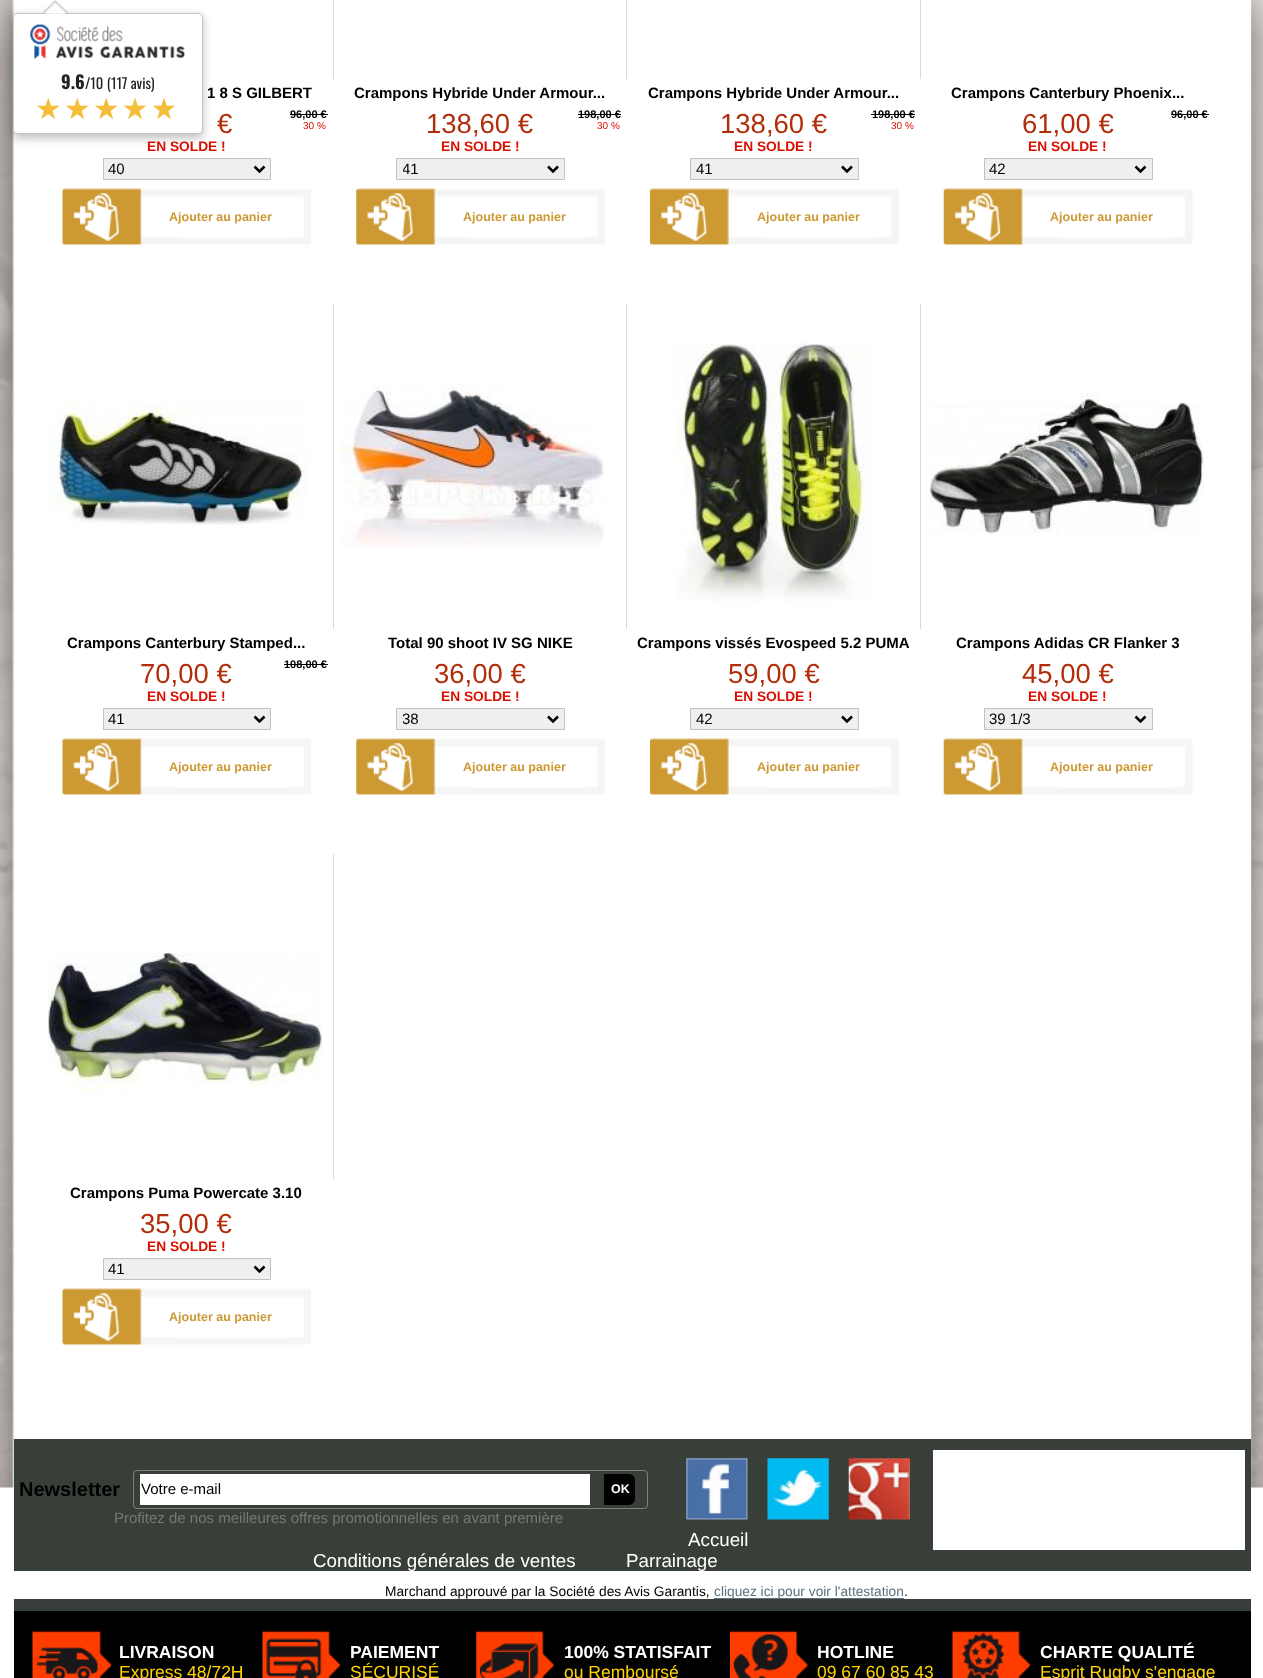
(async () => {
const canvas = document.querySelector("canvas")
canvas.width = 1263
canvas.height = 1678
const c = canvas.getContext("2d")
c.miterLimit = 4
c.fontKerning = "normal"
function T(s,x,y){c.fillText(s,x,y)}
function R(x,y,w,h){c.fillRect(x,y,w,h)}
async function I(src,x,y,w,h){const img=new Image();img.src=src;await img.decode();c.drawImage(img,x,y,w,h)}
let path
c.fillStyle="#fff"
R(0,0,1263,1678)
await I("1.png",0,0,1263,1488)
R(14,0,1237,1488)
c.fillStyle="#00000040"
c.filter="blur(5px)"
c.beginPath()
c.roundRect(13,16,190,122,4)
c.fill()
c.filter="none"
c.fillStyle="#fff"
c.beginPath()
c.roundRect(13.5,13.5,189,120,3.5)
c.fill()
c.strokeStyle="#c5c5c5"
c.stroke()
await I("2.png",43,0,25,14)
await I("3.png",30,24,155,35)
c.font="bold 18px Oswald"
c.fillStyle="#222"
T("9.6",61,89)
c.font="14.5px Oswald"
T("/10 (117 avis)",85,89)
c.letterSpacing="2.5px"
c.font="29.5px DejaVu Sans"
c.fillStyle="#f4bd3a"
T("★★★★★",35,119)
c.fillStyle="#d9d9d9"
R(333,0,1,79)
c.letterSpacing="0px"
c.font="bold 15px Liberation Sans"
c.fillStyle="#000"
T("1 8 S GILBERT",207,98)
c.font="27.5px Liberation Sans"
c.fillStyle="#b22e0a"
T("€",217,133)
c.font="bold 11px Liberation Sans"
c.fillStyle="#000"
T("96,00 €",290,118)
R(290,114,38,1)
c.font="10px Liberation Sans"
c.fillStyle="#da0f00"
T("30 %",303,129)
c.font="bold 13.75px Liberation Sans"
T("EN SOLDE !",147,151)
c.fillStyle="#efefef"
c.beginPath()
c.rect(103.5,158.5,167,21)
c.fill()
c.strokeStyle="#bdc2c9"
c.stroke()
path = new Path2D("M254.5 166.5l5 5l5-5")
c.strokeStyle="#000"
c.lineWidth=2.5
c.stroke(path)
c.font="15px Liberation Sans"
c.fillStyle="#000"
T("40",108,174)
await I("4.png",62,188,249,57)
c.font="bold 12.5px Liberation Sans"
c.fillStyle="#cd9934"
T("Ajouter au panier",169,221)
c.fillStyle="#d9d9d9"
R(626,0,1,79)
c.font="bold 15px Liberation Sans"
c.fillStyle="#000"
T("Crampons Hybride Under Armour...",354,98)
c.font="27.5px Liberation Sans"
c.fillStyle="#b22e0a"
T("138,60 €",426,133)
c.font="bold 11px Liberation Sans"
c.fillStyle="#000"
T("198,00 €",578,118)
R(578,114,43,1)
c.font="10px Liberation Sans"
c.fillStyle="#da0f00"
T("30 %",597,129)
c.font="bold 13.75px Liberation Sans"
T("EN SOLDE !",441,151)
c.fillStyle="#efefef"
c.beginPath()
c.rect(396.5,158.5,168,21)
c.fill()
c.strokeStyle="#bdc2c9"
c.lineWidth=1
c.stroke()
path = new Path2D("M548 166.5l5 5l5-5")
c.strokeStyle="#000"
c.lineWidth=2.5
c.stroke(path)
c.save()
c.beginPath()
c.rect(403,159,141,20)
c.clip()
c.font="15px Liberation Sans"
c.fillStyle="#000"
T("41",402,174)
c.restore()
await I("5.png",356,188,249,57)
c.font="bold 12.5px Liberation Sans"
c.fillStyle="#cd9934"
T("Ajouter au panier",463,221)
c.fillStyle="#d9d9d9"
R(920,0,1,79)
c.font="bold 15px Liberation Sans"
c.fillStyle="#000"
T("Crampons Hybride Under Armour...",648,98)
c.font="27.5px Liberation Sans"
c.fillStyle="#b22e0a"
T("138,60 €",720,133)
c.font="bold 11px Liberation Sans"
c.fillStyle="#000"
T("198,00 €",872,118)
R(871,114,44,1)
c.font="10px Liberation Sans"
c.fillStyle="#da0f00"
T("30 %",891,129)
c.font="bold 13.75px Liberation Sans"
T("EN SOLDE !",734,151)
c.fillStyle="#efefef"
c.beginPath()
c.rect(690.5,158.5,168,21)
c.fill()
c.strokeStyle="#bdc2c9"
c.lineWidth=1
c.stroke()
path = new Path2D("M842 166.5l5 5l5-5")
c.strokeStyle="#000"
c.lineWidth=2.5
c.stroke(path)
c.font="15px Liberation Sans"
c.fillStyle="#000"
T("41",696,174)
await I("6.png",650,188,249,57)
c.font="bold 12.5px Liberation Sans"
c.fillStyle="#cd9934"
T("Ajouter au panier",757,221)
c.font="bold 15px Liberation Sans"
c.fillStyle="#000"
T("Crampons Canterbury Phoenix...",951,98)
c.font="27.5px Liberation Sans"
c.fillStyle="#b22e0a"
T("61,00 €",1022,133)
c.font="bold 11px Liberation Sans"
c.fillStyle="#000"
T("96,00 €",1171,118)
R(1171,114,38,1)
c.font="bold 13.75px Liberation Sans"
c.fillStyle="#da0f00"
T("EN SOLDE !",1028,151)
c.fillStyle="#efefef"
c.beginPath()
c.rect(984.5,158.5,168,21)
c.fill()
c.strokeStyle="#bdc2c9"
c.lineWidth=1
c.stroke()
path = new Path2D("M1135.5 166.5l5 5l5-5")
c.strokeStyle="#000"
c.lineWidth=2.5
c.stroke(path)
c.font="15px Liberation Sans"
c.fillStyle="#000"
T("42",989,174)
await I("7.png",943,188,250,57)
c.font="bold 12.5px Liberation Sans"
c.fillStyle="#cd9934"
T("Ajouter au panier",1050,221)
c.fillStyle="#d9d9d9"
R(333,304,1,325)
await I("8.png",47,402,261,123)
c.font="bold 15px Liberation Sans"
c.fillStyle="#000"
T("Crampons Canterbury Stamped...",67,648)
c.font="27.5px Liberation Sans"
c.fillStyle="#b22e0a"
T("70,00 €",140,683)
c.font="bold 11px Liberation Sans"
c.fillStyle="#000"
T("108,00 €",284,668)
R(284,664,44,1)
c.font="bold 13.75px Liberation Sans"
c.fillStyle="#da0f00"
T("EN SOLDE !",147,701)
c.fillStyle="#efefef"
c.beginPath()
c.rect(103.5,708.5,167,21)
c.fill()
c.strokeStyle="#bdc2c9"
c.lineWidth=1
c.stroke()
path = new Path2D("M254.5 716.5l5 5l5-5")
c.strokeStyle="#000"
c.lineWidth=2.5
c.stroke(path)
c.font="15px Liberation Sans"
c.fillStyle="#000"
T("41",108,724)
await I("4.png",62,738,249,57)
c.font="bold 12.5px Liberation Sans"
c.fillStyle="#cd9934"
T("Ajouter au panier",169,771)
c.fillStyle="#d9d9d9"
R(626,304,1,325)
await I("9.png",341,383,263,165)
c.font="bold 15px Liberation Sans"
c.fillStyle="#000"
T("Total 90 shoot IV SG NIKE",388,648)
c.font="27.5px Liberation Sans"
c.fillStyle="#b22e0a"
T("36,00 €",434,683)
c.font="bold 13.75px Liberation Sans"
c.fillStyle="#da0f00"
T("EN SOLDE !",441,701)
c.fillStyle="#efefef"
c.beginPath()
c.rect(396.5,708.5,168,21)
c.fill()
c.strokeStyle="#bdc2c9"
c.lineWidth=1
c.stroke()
path = new Path2D("M548 716.5l5 5l5-5")
c.strokeStyle="#000"
c.lineWidth=2.5
c.stroke(path)
c.save()
c.beginPath()
c.rect(403,709,141,20)
c.clip()
c.font="15px Liberation Sans"
c.fillStyle="#000"
T("38",402,724)
c.restore()
await I("5.png",356,738,249,57)
c.font="bold 12.5px Liberation Sans"
c.fillStyle="#cd9934"
T("Ajouter au panier",463,771)
c.fillStyle="#d9d9d9"
R(920,304,1,325)
await I("10.png",675,342,199,261)
c.font="bold 15px Liberation Sans"
c.fillStyle="#000"
T("Crampons vissés Evospeed 5.2 PUMA",637,648)
c.font="27.5px Liberation Sans"
c.fillStyle="#b22e0a"
T("59,00 €",728,683)
c.font="bold 13.75px Liberation Sans"
c.fillStyle="#da0f00"
T("EN SOLDE !",734,701)
c.fillStyle="#efefef"
c.beginPath()
c.rect(690.5,708.5,168,21)
c.fill()
c.strokeStyle="#bdc2c9"
c.lineWidth=1
c.stroke()
path = new Path2D("M842 716.5l5 5l5-5")
c.strokeStyle="#000"
c.lineWidth=2.5
c.stroke(path)
c.font="15px Liberation Sans"
c.fillStyle="#000"
T("42",696,724)
await I("6.png",650,738,249,57)
c.font="bold 12.5px Liberation Sans"
c.fillStyle="#cd9934"
T("Ajouter au panier",757,771)
await I("11.png",929,393,275,141)
c.font="bold 15px Liberation Sans"
c.fillStyle="#000"
T("Crampons Adidas CR Flanker 3",956,648)
c.font="27.5px Liberation Sans"
c.fillStyle="#b22e0a"
T("45,00 €",1022,683)
c.font="bold 13.75px Liberation Sans"
c.fillStyle="#da0f00"
T("EN SOLDE !",1028,701)
c.fillStyle="#efefef"
c.beginPath()
c.rect(984.5,708.5,168,21)
c.fill()
c.strokeStyle="#bdc2c9"
c.lineWidth=1
c.stroke()
path = new Path2D("M1135.5 716.5l5 5l5-5")
c.strokeStyle="#000"
c.lineWidth=2.5
c.stroke(path)
c.font="15px Liberation Sans"
c.fillStyle="#000"
T("39 1/3",989,724)
await I("7.png",943,738,250,57)
c.font="bold 12.5px Liberation Sans"
c.fillStyle="#cd9934"
T("Ajouter au panier",1050,771)
c.fillStyle="#d9d9d9"
R(333,854,1,325)
await I("12.png",47,953,276,140)
c.font="bold 15px Liberation Sans"
c.fillStyle="#000"
T("Crampons Puma Powercate 3.10",70,1198)
c.font="27.5px Liberation Sans"
c.fillStyle="#b22e0a"
T("35,00 €",140,1233)
c.font="bold 13.75px Liberation Sans"
c.fillStyle="#da0f00"
T("EN SOLDE !",147,1251)
c.fillStyle="#efefef"
c.beginPath()
c.rect(103.5,1258.5,167,21)
c.fill()
c.strokeStyle="#bdc2c9"
c.lineWidth=1
c.stroke()
path = new Path2D("M254.5 1266.5l5 5l5-5")
c.strokeStyle="#000"
c.lineWidth=2.5
c.stroke(path)
c.font="15px Liberation Sans"
c.fillStyle="#000"
T("41",108,1274)
await I("4.png",62,1288,249,57)
c.font="bold 12.5px Liberation Sans"
c.fillStyle="#cd9934"
T("Ajouter au panier",169,1321)
c.fillStyle="#383f38"
R(14,1439,1237,132)
c.font="bold 20px Liberation Sans"
c.fillStyle="#000"
T("Newsletter",19,1496)
c.beginPath()
c.roundRect(133.5,1470.5,514,38,3.5)
c.strokeStyle="#7f7f7f"
c.lineWidth=1
c.stroke()
c.fillStyle="#fff"
R(140,1474,450,31)
c.font="15px Liberation Sans"
c.fillStyle="#000"
T("Votre e-mail",141,1494)
c.fillStyle="#010101"
c.beginPath()
c.roundRect(604.5,1474.5,30,30,[0,5.5,5.5,0])
c.fill()
c.strokeStyle="#010101"
c.stroke()
c.font="bold 12.5px Liberation Sans"
c.fillStyle="#fff"
T("OK",611,1493)
c.font="15px Liberation Sans"
c.fillStyle="#787777"
T("Profitez de nos meilleures offres promotionnelles en avant première",114,1523)
await I("13.png",686,1458,62,62)
await I("14.png",767,1458,62,62)
await I("15.png",848,1458,62,62)
c.fillStyle="#fff"
R(933,1450,312,100)
c.font="18.75px Liberation Sans"
T("Accueil",688,1546)
T("Conditions générales de ventes",313,1567)
T("Parrainage",626,1567)
c.font="13.75px Liberation Sans"
c.fillStyle="#000"
T("Marchand approuvé par la Société des Avis Garantis,",385,1596)
c.fillStyle="#5d717e"
R(714,1598,190,1)
T("cliquez ici pour voir l'attestation",714,1596)
c.fillStyle="#000"
T(".",904,1596)
R(14,1611,1237,67)
c.fillStyle="#383e3a"
R(14,1599,1237,12)
await I("16.png",32,1630,80,48)
await I("17.png",36,1647,62,31)
c.font="bold 17.5px Liberation Sans"
c.fillStyle="#fff"
T("LIVRAISON",119,1658)
c.font="17.5px Liberation Sans"
c.fillStyle="#ffd500"
T("Express 48/72H",119,1678)
await I("18.png",262,1630,78,48)
await I("19.png",266,1638,56,40)
c.font="bold 17.5px Liberation Sans"
c.fillStyle="#fff"
T("PAIEMENT",350,1658)
c.font="17.5px Liberation Sans"
c.fillStyle="#ffd500"
T("SÉCURISÉ",350,1678)
await I("20.png",476,1630,78,48)
await I("21.png",480,1643,59,35)
c.font="bold 17.5px Liberation Sans"
c.fillStyle="#fff"
T("100% STATISFAIT",564,1658)
c.font="17.5px Liberation Sans"
c.fillStyle="#ffd500"
T("ou Remboursé",564,1678)
await I("22.png",730,1630,78,48)
await I("23.png",733,1634,55,44)
c.font="bold 17.5px Liberation Sans"
c.fillStyle="#fff"
T("HOTLINE",817,1658)
c.font="17.5px Liberation Sans"
c.fillStyle="#ffd500"
T("09 67 60 85 43",817,1678)
await I("18.png",952,1630,78,48)
await I("24.png",961,1633,44,45)
c.font="bold 17.5px Liberation Sans"
c.fillStyle="#fff"
T("CHARTE QUALITÉ",1040,1658)
c.font="17.5px Liberation Sans"
c.fillStyle="#ffd500"
T("Esprit Rugby s'engage",1040,1678)
})()
